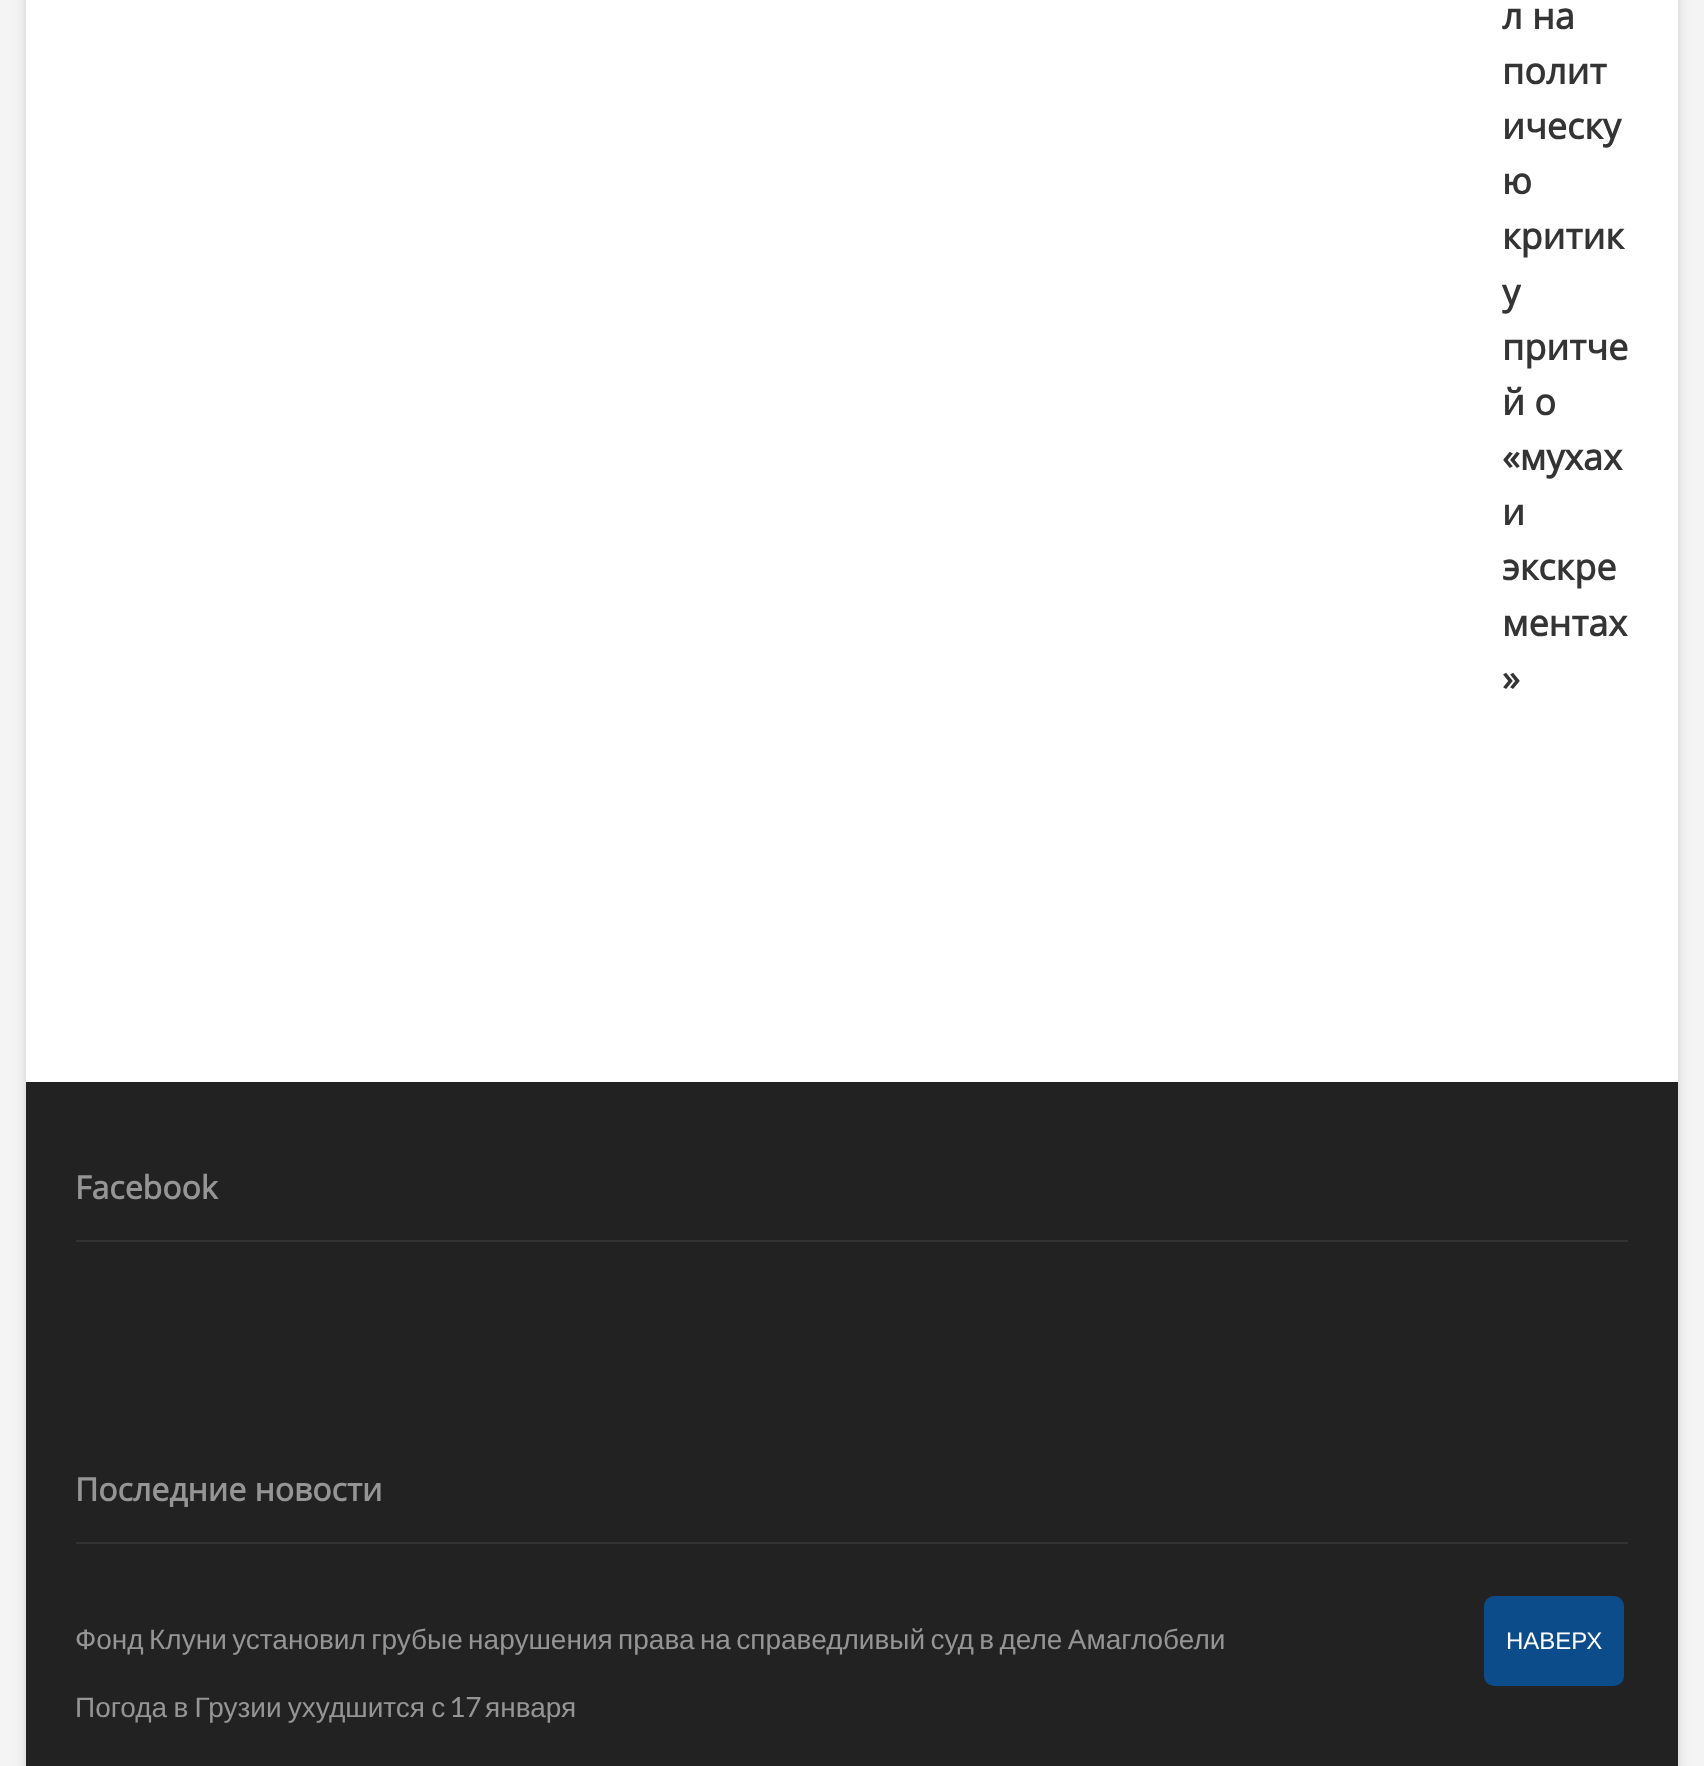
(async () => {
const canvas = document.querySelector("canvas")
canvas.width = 1704
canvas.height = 1766
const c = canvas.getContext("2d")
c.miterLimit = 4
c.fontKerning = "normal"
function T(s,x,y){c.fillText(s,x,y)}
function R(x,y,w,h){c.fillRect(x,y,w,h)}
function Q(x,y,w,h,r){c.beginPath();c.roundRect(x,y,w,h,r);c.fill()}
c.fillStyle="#f4f4f4"
R(0,0,1704,1766)
c.fillStyle="#00000026"
c.filter="blur(6px)"
c.beginPath()
c.rect(26,-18,1652,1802)
c.fill()
c.filter="none"
c.fillStyle="#fff"
R(26,0,1652,1082)
c.font="bold 36px Open Sans"
c.fillStyle="#343434"
T("л на",1502,29)
T("полит",1502,84)
T("ическу",1502,139)
T("ю",1502,194)
T("критик",1502,249)
T("у",1502,305)
T("притче",1502,360)
T("й о",1502,415)
T("«мухах",1502,470)
T("и",1502,525)
T("экскре",1502,580)
T("ментах",1502,636)
T("»",1502,691)
c.fillStyle="#222"
R(26,1084,1652,682)
c.fillStyle="#202020"
R(26,1082,1652,2)
c.fillStyle="#333"
R(76,1240,1552,2)
c.font="bold 32px Open Sans"
c.fillStyle="#969595"
T("Facebook",75,1199)
c.fillStyle="#333"
R(76,1542,1552,2)
c.fillStyle="#969595"
T("Последние новости",75,1501)
c.wordSpacing="-2.4px"
c.font="28px Liberation Sans"
T("Фонд Клуни установил грубые нарушения права на справедливый суд в деле Амаглобели",75,1649)
c.wordSpacing="-1.5px"
T("Погода в Грузии ухудшится с",75,1717)
c.wordSpacing="0px"
c.font="28px Lato"
T("17",449,1717)
c.font="28px Liberation Sans"
T("января",485,1717)
c.fillStyle="#0c4c8a"
Q(1484,1596,140,90,10)
c.font="24px Liberation Sans"
c.fillStyle="#fff"
T("НАВЕРХ",1506,1649)
})()
